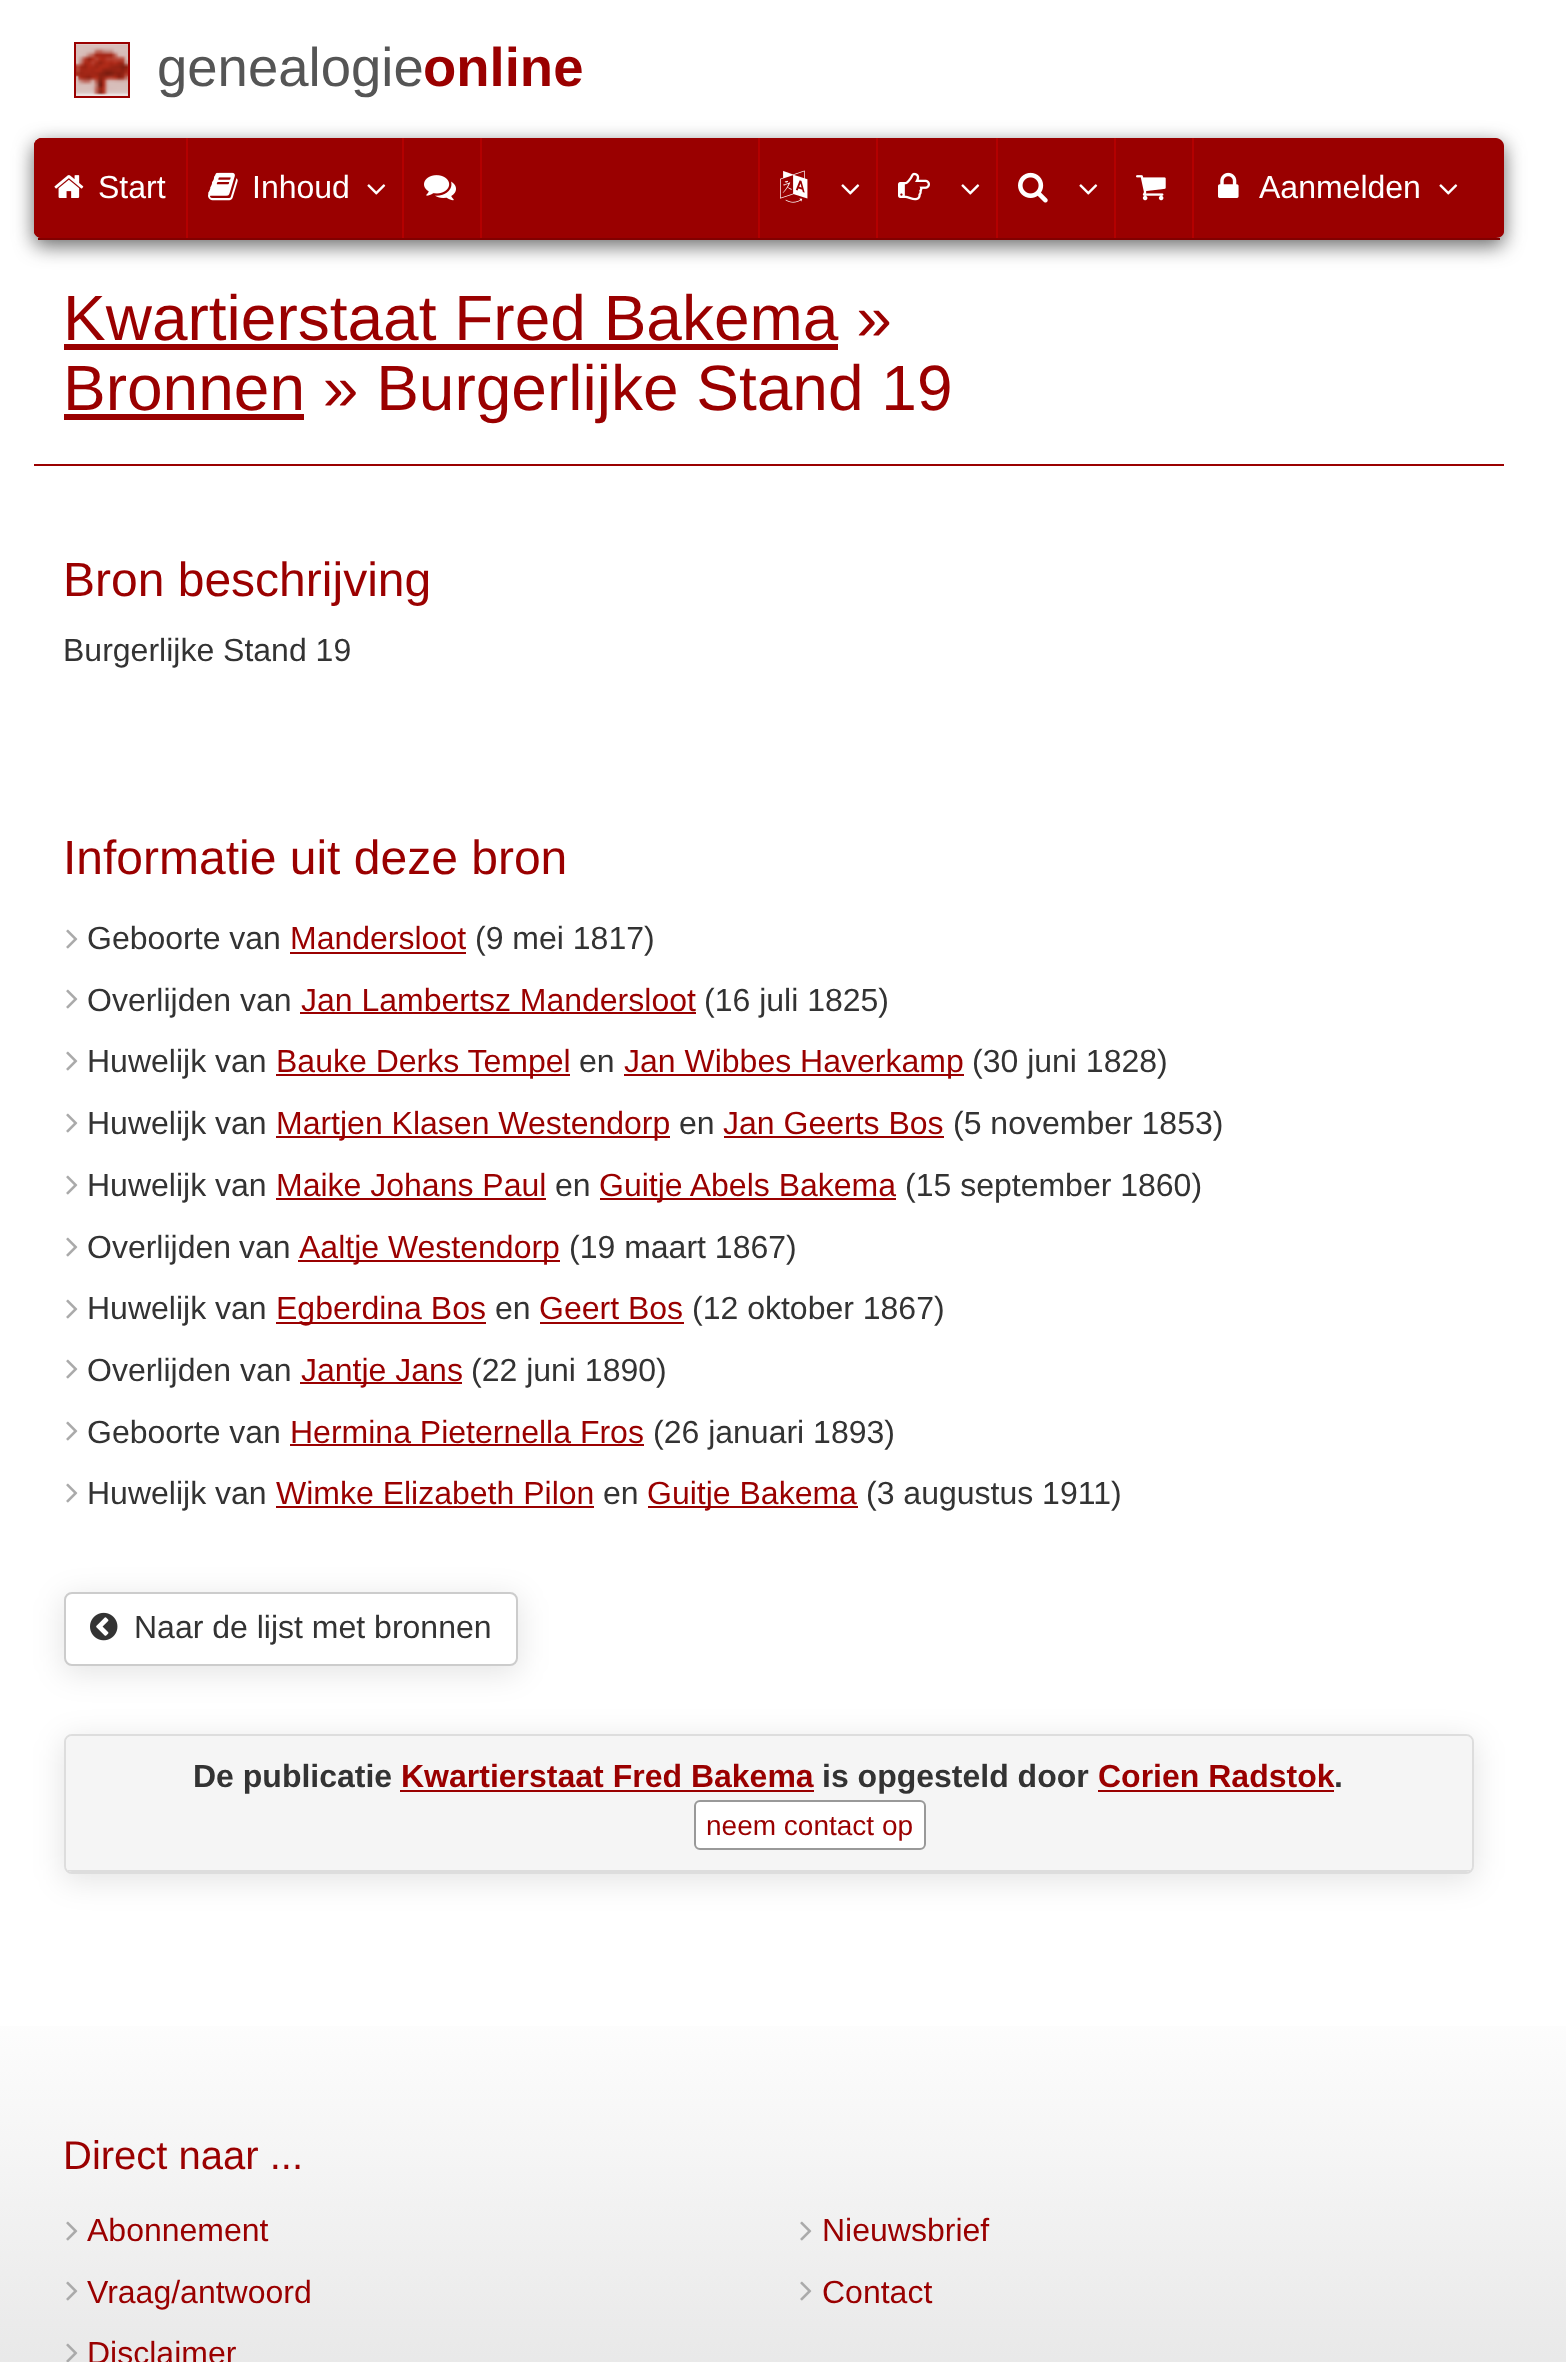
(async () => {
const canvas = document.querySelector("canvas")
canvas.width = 1566
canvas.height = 2362
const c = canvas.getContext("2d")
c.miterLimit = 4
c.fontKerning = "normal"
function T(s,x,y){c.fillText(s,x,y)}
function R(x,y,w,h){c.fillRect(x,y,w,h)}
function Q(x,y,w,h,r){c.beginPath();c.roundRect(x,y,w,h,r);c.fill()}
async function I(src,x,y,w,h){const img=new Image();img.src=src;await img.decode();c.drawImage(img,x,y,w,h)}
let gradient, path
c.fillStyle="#fff"
R(0,0,1566,2362)
await I("1.png",76,44,52,52)
c.strokeStyle="#9a0000"
c.lineWidth=2
c.strokeRect(75,43,54,54)
c.font="54.5px Liberation Sans"
c.fillStyle="#555"
T("genealogie",157,86)
c.font="bold 54.5px Liberation Sans"
c.fillStyle="#9a0000"
T("online",423,86)
c.fillStyle="#323232ba"
c.filter="blur(10px)"
c.beginPath()
c.roundRect(34,144,1470,102,8)
c.fill()
c.filter="none"
c.fillStyle="#9a0000"
path = new Path2D("M42 138h1454c4 0 8 4 8 8v86c0 3-4 6-8 6h-1454c-4 0-8-3-8-6v-86c0-4 4-8 8-8z")
c.fill(path)
c.fillStyle="#810000"
R(38,238,1462,2)
c.fillStyle="#9a0000"
Q(34,138,1440,100,8)
Q(34,138,152,100,8)
await I("2.png",54,175,30,23)
c.font="32px Liberation Sans"
c.fillStyle="#fff"
T("Start",98,198)
c.fillStyle="#b30000"
R(186,138,2,100)
await I("3.png",208,172,30,29)
c.fillStyle="#fff"
T("Inhoud",252,198)
await I("4.png",367,184,19,11)
c.fillStyle="#b30000"
R(402,138,2,100)
await I("5.png",424,175,32,26)
R(480,138,2,100)
R(758,138,2,100)
await I("6.png",780,170,28,33)
await I("4.png",841,184,19,11)
R(876,138,2,100)
await I("7.png",898,172,32,29)
await I("4.png",961,184,19,11)
R(996,138,2,100)
await I("8.png",1018,172,30,31)
await I("4.png",1079,184,19,11)
R(1114,138,2,100)
await I("9.png",1136,175,30,26)
R(1192,138,2,100)
await I("10.png",1218,172,21,26)
c.fillStyle="#fff"
T("Aanmelden",1259,198)
await I("4.png",1439,184,19,11)
c.fillStyle="#9a0000"
R(34,464,1470,2)
c.font="64px Liberation Sans"
T("Kwartierstaat Fred Bakema »",63,340)
R(64,344,774,6)
R(64,414,240,6)
T("Bronnen » Burgerlijke Stand 19",63,410)
c.font="48px Liberation Sans"
T("Bron beschrijving",63,596)
c.font="32px Liberation Sans"
c.fillStyle="#333"
T("Burgerlijke Stand 19",63,661)
c.font="48px Liberation Sans"
c.fillStyle="#9a0000"
T("Informatie uit deze bron",63,874)
await I("11.png",66,929,12,20)
c.font="32px Liberation Sans"
c.fillStyle="#333"
T("Geboorte van",87,949)
c.fillStyle="#9a0000"
T("Mandersloot",290,949)
R(290,952,176,2)
c.fillStyle="#333"
T("(9 mei 1817)",475,949)
await I("11.png",66,989,12,20)
T("Overlijden van",87,1011)
c.fillStyle="#9a0000"
T("Jan Lambertsz Mandersloot",301,1011)
R(300,1012,396,2)
c.fillStyle="#333"
T("(16 juli 1825)",704,1011)
await I("11.png",66,1051,12,20)
T("Huwelijk van",87,1072)
c.fillStyle="#9a0000"
R(276,1074,294,2)
T("Bauke Derks Tempel",276,1072)
c.fillStyle="#333"
T("en",579,1072)
c.fillStyle="#9a0000"
R(624,1074,340,2)
T("Jan Wibbes Haverkamp",624,1072)
c.fillStyle="#333"
T("(30 juni 1828)",972,1072)
await I("11.png",66,1113,12,20)
T("Huwelijk van",87,1134)
c.fillStyle="#9a0000"
R(276,1136,394,2)
T("Martjen Klasen Westendorp",276,1134)
c.fillStyle="#333"
T("en",679,1134)
c.fillStyle="#9a0000"
T("Jan Geerts Bos",723,1134)
R(724,1136,220,2)
c.fillStyle="#333"
T("(5 november 1853)",953,1134)
await I("11.png",66,1175,12,20)
T("Huwelijk van",87,1196)
c.fillStyle="#9a0000"
T("Maike Johans Paul",276,1196)
R(276,1198,270,2)
c.fillStyle="#333"
T("en",555,1196)
c.fillStyle="#9a0000"
R(600,1198,296,2)
T("Guitje Abels Bakema",599,1196)
c.fillStyle="#333"
T("(15 september 1860)",905,1196)
await I("11.png",66,1237,12,20)
c.wordSpacing="-1px"
T("Overlijden van",87,1258)
c.fillStyle="#9a0000"
R(298,1260,262,2)
c.wordSpacing="0px"
T("Aaltje Westendorp",299,1258)
c.fillStyle="#333"
T("(19 maart 1867)",569,1258)
await I("11.png",66,1299,12,20)
T("Huwelijk van",87,1319)
c.fillStyle="#9a0000"
R(276,1322,210,2)
T("Egberdina Bos",276,1319)
c.fillStyle="#333"
T("en",495,1319)
c.fillStyle="#9a0000"
T("Geert Bos",539,1319)
R(540,1322,144,2)
c.fillStyle="#333"
T("(12 oktober 1867)",692,1319)
await I("11.png",66,1359,12,20)
T("Overlijden van",87,1381)
c.fillStyle="#9a0000"
R(300,1382,162,2)
T("Jantje Jans",301,1381)
c.fillStyle="#333"
T("(22 juni 1890)",471,1381)
await I("11.png",66,1421,12,20)
T("Geboorte van",87,1443)
c.fillStyle="#9a0000"
T("Hermina Pieternella Fros",290,1443)
R(290,1444,354,2)
c.fillStyle="#333"
T("(26 januari 1893)",653,1443)
await I("11.png",66,1483,12,20)
T("Huwelijk van",87,1504)
c.fillStyle="#9a0000"
T("Wimke Elizabeth Pilon",276,1504)
R(276,1506,318,2)
c.fillStyle="#333"
T("en",603,1504)
c.fillStyle="#9a0000"
R(648,1506,210,2)
T("Guitje Bakema",647,1504)
c.fillStyle="#333"
T("(3 augustus 1911)",866,1504)
c.fillStyle="#0000001a"
c.filter="blur(15px)"
c.beginPath()
c.roundRect(62,1596,458,78,10)
c.fill()
c.filter="none"
c.fillStyle="#fff"
c.beginPath()
c.roundRect(65,1593,452,72,7)
c.fill()
c.strokeStyle="#ccc"
c.stroke()
await I("12.png",90,1612,28,29)
c.fillStyle="#333"
T("Naar de lijst met bronnen",134,1638)
c.fillStyle="#0000001a"
c.filter="blur(15px)"
c.beginPath()
c.roundRect(62,1738,1414,144,10)
c.fill()
c.filter="none"
c.beginPath()
c.roundRect(65,1735,1408,138,7)
c.strokeStyle="#ddd"
c.stroke()
c.fillStyle="#f5f5f5"
Q(66,1736,1406,136,6)
c.save()
c.beginPath()
c.roundRect(66,1736,1406,136,6)
c.clip()
c.fillStyle="#ddd"
R(66,1870,1406,2)
c.restore()
c.font="bold 32px Liberation Sans"
c.fillStyle="#333"
T("De publicatie",193,1787)
c.fillStyle="#9a0000"
T("Kwartierstaat Fred Bakema",401,1787)
R(400,1790,414,2)
c.fillStyle="#333"
T("is opgesteld door",822,1787)
c.fillStyle="#9a0000"
T("Corien Radstok",1098,1787)
R(1098,1790,236,2)
c.fillStyle="#333"
T(".",1334,1787)
c.fillStyle="#fff"
c.beginPath()
c.roundRect(695,1801,230,48,5)
c.fill()
c.strokeStyle="#999"
c.stroke()
c.font="28px Liberation Sans"
c.fillStyle="#9a0000"
T("neem contact op",706,1835)
gradient = c.createLinearGradient(783,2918,783,1984)
gradient.addColorStop(0,"#c8c8c8")
gradient.addColorStop(1,"#fff")
c.fillStyle = gradient
R(0,2026,1566,336)
c.font="40px Liberation Sans"
c.fillStyle="#9a0000"
T("Direct naar ...",63,2169)
await I("13.png",66,2221,12,20)
c.font="32px Liberation Sans"
T("Abonnement",87,2241)
await I("14.png",66,2281,12,20)
T("Vraag/antwoord",87,2303)
await I("15.png",66,2343,12,19)
T("Disclaimer",87,2364)
await I("13.png",800,2221,12,20)
T("Nieuwsbrief",822,2241)
await I("14.png",800,2281,12,20)
T("Contact",822,2303)
})()
